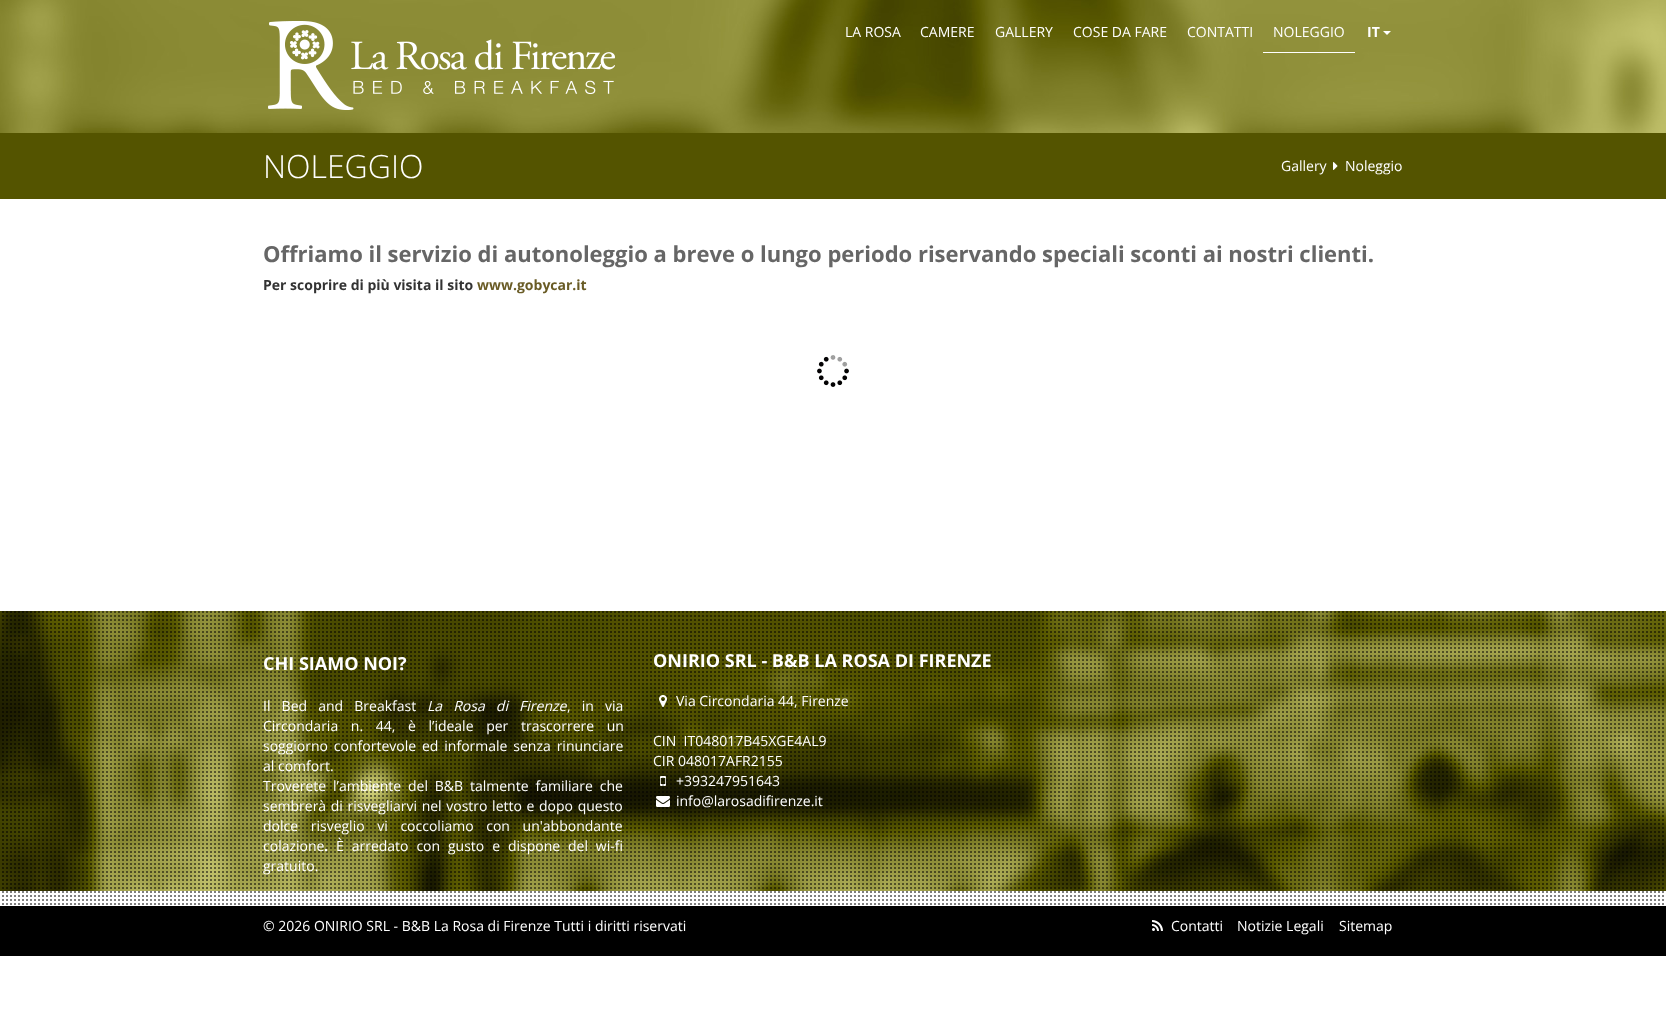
(async () => {
const canvas = document.querySelector("canvas")
canvas.width = 1666
canvas.height = 1029
const c = canvas.getContext("2d")
c.miterLimit = 4
c.fontKerning = "normal"
function T(s,x,y){c.fillText(s,x,y)}
function R(x,y,w,h){c.fillRect(x,y,w,h)}
async function I(src,x,y,w,h){const img=new Image();img.src=src;await img.decode();c.drawImage(img,x,y,w,h)}
let path
c.fillStyle="#fff"
R(0,0,1666,1029)
await I("1.png",0,0,1666,133)
await I("2.png",268,21,347,89)
c.font="14px Open Sans"
T("LA ROSA",845,37)
T("CAMERE",920,37)
T("GALLERY",995,37)
T("COSE DA FARE",1073,37)
T("CONTATTI",1187,37)
R(1263,52,92,1)
T("NOLEGGIO",1273,37)
c.font="bold 14px Open Sans"
T("IT",1367,37)
path = new Path2D("M1383 31h8l-4 4z")
c.fill(path)
c.fillStyle="#545400"
R(0,133,1666,66)
c.font="300 32px Open Sans"
c.fillStyle="#fff"
T("NOLEGGIO",263,178)
c.font="14px Open Sans"
T("Gallery",1281,171)
await I("3.png",1333,162,5,8)
T("Noleggio",1345,171)
c.font="bold 22px Open Sans"
c.fillStyle="#666"
T("Offriamo il servizio di autonoleggio a breve o lungo periodo riservando speciali sconti ai nostri clienti.",263,262)
c.font="bold 14px Open Sans"
c.fillStyle="#333"
T("Per scoprire di più visita il sito",263,290)
c.fillStyle="#695b25"
T("www.gobycar.it",477,290)
await I("4.png",817,355,32,32)
await I("5.png",0,611,1666,280)
await I("6.png",2,611,1662,294)
c.font="bold 18px Open Sans"
c.fillStyle="#fff"
T("CHI SIAMO NOI?",263,670)
c.wordSpacing="7.5px"
c.font="14px Open Sans"
T("Il Bed and Breakfast",263,711)
c.font="italic 14px Open Sans"
T("La Rosa di Firenze",427,711)
c.font="14px Open Sans"
T(", in via",567,711)
c.wordSpacing="9px"
T("Circondaria n. 44, è l’ideale per trascorrere un",263,731)
c.wordSpacing="2.25px"
T("soggiorno confortevole ed informale senza rinunciare",263,751)
c.wordSpacing="0px"
T("al comfort.",263,771)
c.wordSpacing="3.25px"
T("Troverete l’ambiente del B&B talmente familiare che",263,791)
c.wordSpacing="1px"
T("sembrerà di risvegliarvi nel vostro letto e dopo questo",263,811)
c.wordSpacing="9px"
T("dolce risveglio vi coccoliamo con un'abbondante",263,831)
c.wordSpacing="0px"
T("colazione",263,851)
c.font="bold 14px Open Sans"
T(".",324,851)
c.wordSpacing="4.25px"
c.font="14px Open Sans"
T("È arredato con gusto e dispone del wi-fi",336,851)
c.wordSpacing="0px"
T("gratuito.",263,871)
c.font="bold 18px Open Sans"
T("ONIRIO SRL - B&B LA ROSA DI FIRENZE",653,667)
await I("7.png",659,695,8,12)
c.font="14px Open Sans"
T("Via Circondaria 44, Firenze",676,706)
T("CIN  IT048017B45XGE4AL9",653,746)
T("CIR 048017AFR2155",653,766)
await I("8.png",660,776,6,10)
T("+393247951643",676,786)
await I("9.png",656,796,14,11)
T("info@larosadifirenze.it",676,806)
c.fillStyle="#000"
R(0,906,1666,50)
c.fillStyle="#fff"
T("© 2026 ONIRIO SRL - B&B La Rosa di Firenze Tutti i diritti riservati",263,931)
await I("10.png",1152,920,11,11)
T("Contatti",1171,931)
T("Notizie Legali",1237,931)
T("Sitemap",1339,931)
})()
